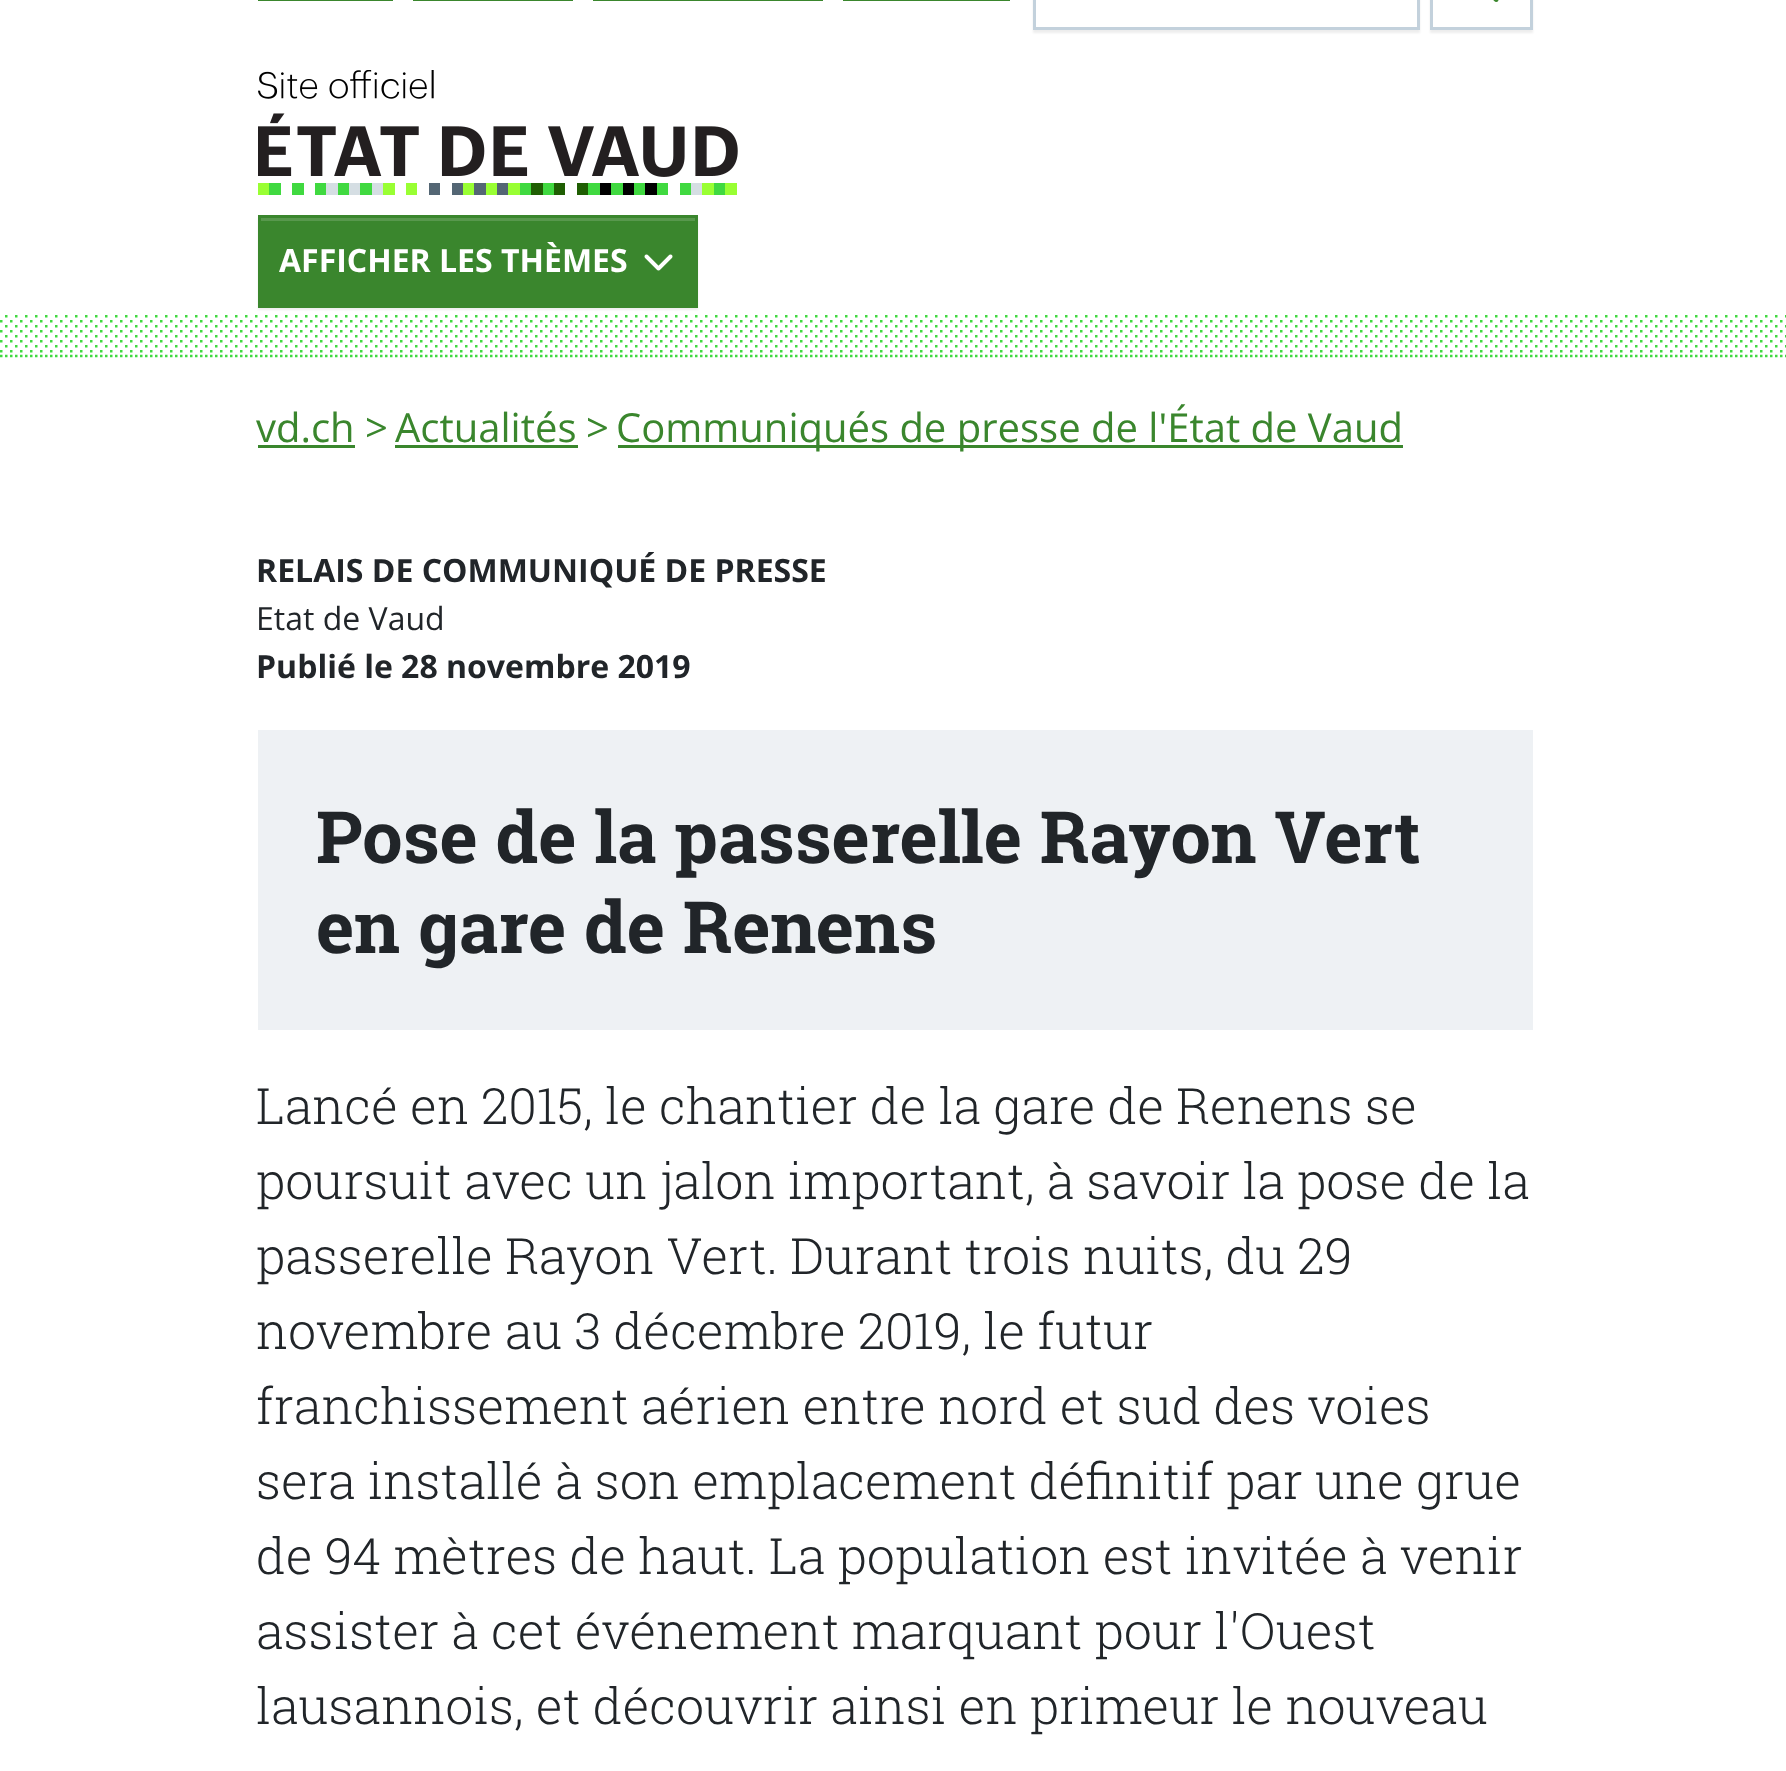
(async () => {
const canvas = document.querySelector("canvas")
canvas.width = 1786
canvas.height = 1771
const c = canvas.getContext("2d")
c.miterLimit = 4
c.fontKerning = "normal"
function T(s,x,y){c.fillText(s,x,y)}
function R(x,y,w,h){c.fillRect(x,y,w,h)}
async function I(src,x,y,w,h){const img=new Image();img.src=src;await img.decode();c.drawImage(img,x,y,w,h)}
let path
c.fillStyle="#fff"
R(0,0,1786,1771)
c.fillStyle="#3a862d"
R(258,0,135,1)
R(413,0,160,1)
R(593,0,230,1)
R(843,0,167,1)
c.save()
path = new Path2D("M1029 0h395v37h-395zm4-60h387v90h-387z")
c.clip(path,"evenodd")
c.fillStyle="#00000012"
c.filter="blur(1px)"
c.beginPath()
c.rect(1033,-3,387,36)
c.fill()
c.filter="none"
c.restore()
c.strokeStyle="#c3d1dc"
c.lineWidth=3
c.strokeRect(1034.5,-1.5,384,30)
c.save()
path = new Path2D("M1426 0h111v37h-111zm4-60h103v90h-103z")
c.clip(path,"evenodd")
c.fillStyle="#00000012"
c.filter="blur(1px)"
c.beginPath()
c.rect(1430,-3,103,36)
c.fill()
c.filter="none"
c.restore()
c.strokeRect(1431.5,-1.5,100,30)
await I("1.png",1493,0,6,2)
await I("2.png",258,70,480,125)
path = new Path2D("M0 356h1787.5")
c.strokeStyle="#40d940"
c.lineWidth=2.5
c.setLineDash([2.5,2.5])
c.stroke(path)
c.fillStyle="#00000012"
c.filter="blur(1px)"
c.beginPath()
c.rect(258,218,440,92)
c.fill()
c.filter="none"
c.fillStyle="#3a862d"
R(261,221,434,84)
c.fillStyle="#58984d"
R(260,218,435,3)
c.strokeStyle="#3a862d"
c.lineWidth=3
c.setLineDash([])
c.strokeRect(259.5,216.5,437,90)
c.font="bold 32px Open Sans"
c.fillStyle="#fff"
T("AFFICHER LES THÈMES",279,272)
await I("3.png",644,254,29,17)
await I("4.png",0,315,1786,38)
c.font="40px Open Sans"
c.fillStyle="#3a862d"
T("vd.ch",256,442)
R(258,445,97,3)
T(">",365,442)
T("Actualités",395,442)
R(395,445,183,3)
T(">",586,442)
R(618,445,785,3)
T("Communiqués de presse de l'État de Vaud",616,442)
c.font="bold 32px Open Sans"
c.fillStyle="#212529"
T("RELAIS DE COMMUNIQUÉ DE PRESSE",256,582)
c.font="32px Open Sans"
T("Etat de Vaud",256,630)
c.font="bold 32px Open Sans"
T("Publié le 28 novembre 2019",256,678)
c.fillStyle="#eef1f4"
R(258,730,1275,300)
c.font="bold 72px Roboto Slab"
c.fillStyle="#212529"
T("Pose de la passerelle Rayon Vert",316,863)
T("en gare de Renens",316,953)
c.font="300 50px Roboto Slab"
T("Lancé en 2015, le chantier de la gare de Renens se",256,1124)
T("poursuit avec un jalon important, à savoir la pose de la",256,1199)
T("passerelle Rayon Vert. Durant trois nuits, du 29",256,1274)
T("novembre au 3 décembre 2019, le futur",256,1349)
T("franchissement aérien entre nord et sud des voies",256,1424)
T("sera installé à son emplacement définitif par une grue",256,1499)
T("de 94 mètres de haut. La population est invitée à venir",256,1574)
T("assister à cet événement marquant pour l'Ouest",256,1649)
T("lausannois, et découvrir ainsi en primeur le nouveau",256,1724)
})()
